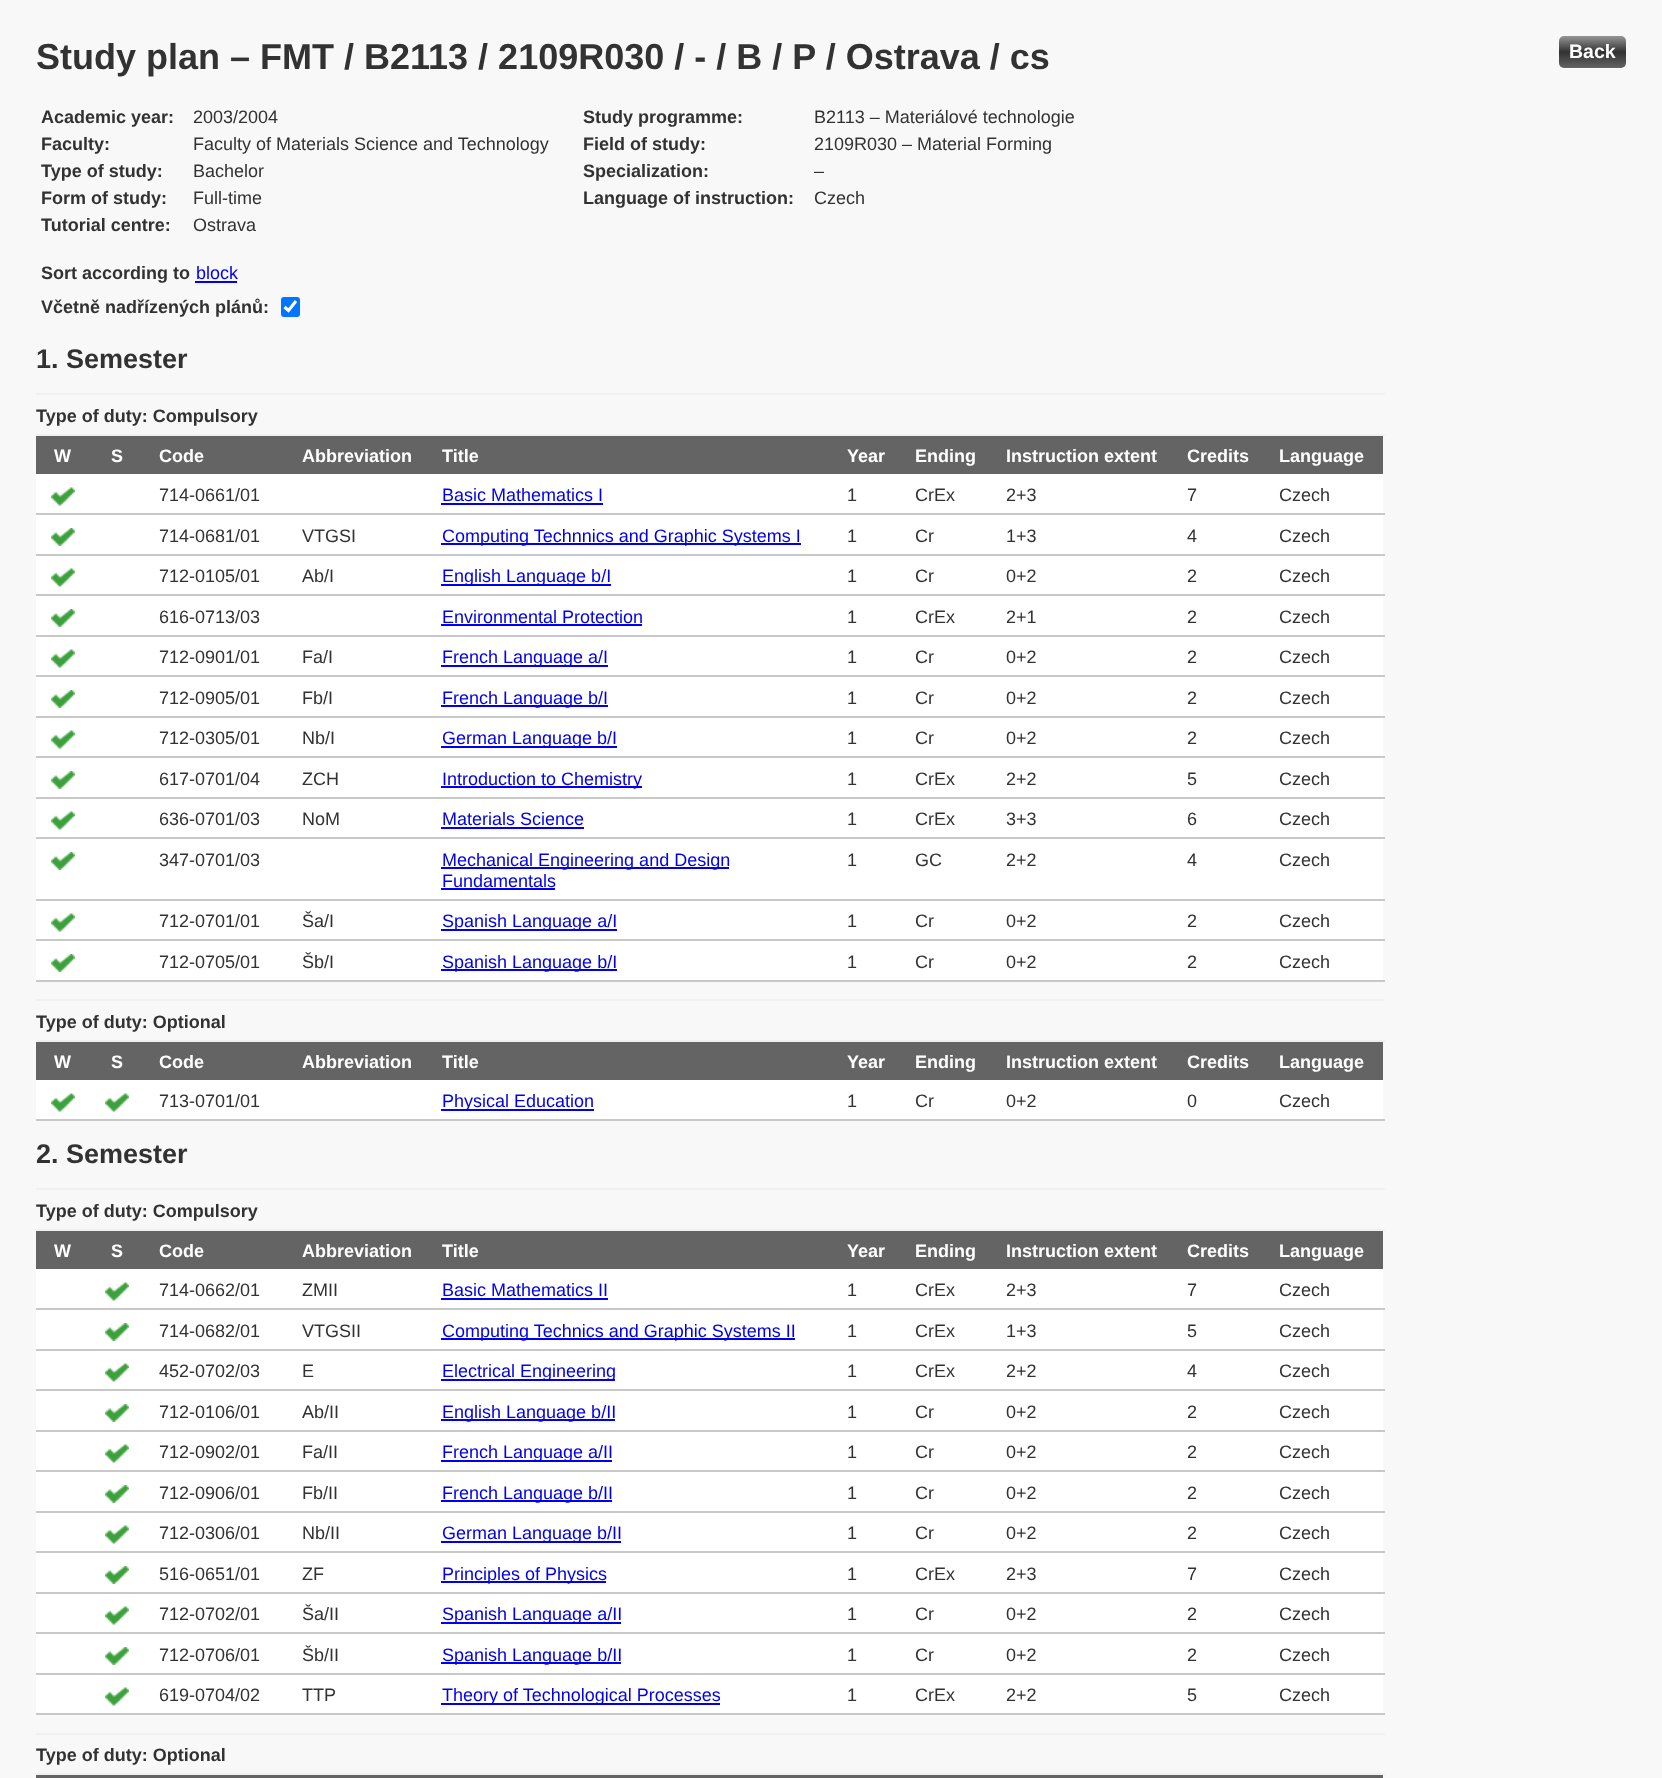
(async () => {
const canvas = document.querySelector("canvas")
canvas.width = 1662
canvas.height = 1778
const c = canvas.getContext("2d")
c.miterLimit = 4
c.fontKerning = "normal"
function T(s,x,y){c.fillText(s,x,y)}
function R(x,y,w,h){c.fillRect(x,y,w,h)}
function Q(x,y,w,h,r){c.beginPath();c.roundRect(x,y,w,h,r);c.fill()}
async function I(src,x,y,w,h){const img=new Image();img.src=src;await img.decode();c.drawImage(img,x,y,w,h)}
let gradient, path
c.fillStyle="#f8f8f8"
R(0,0,1662,1778)
c.font="bold 36px Liberation Sans"
c.fillStyle="#323232"
T("Study plan – FMT / B2113 / 2109R030 / - / B / P / Ostrava / cs",36,69)
c.font="bold 18px Liberation Sans"
T("Academic year:",41,123)
c.font="18px Liberation Sans"
T("2003/2004",193,123)
c.font="bold 18px Liberation Sans"
T("Study programme:",583,123)
c.font="18px Liberation Sans"
T("B2113 – Materiálové technologie",814,123)
c.font="bold 18px Liberation Sans"
T("Faculty:",41,150)
c.font="18px Liberation Sans"
T("Faculty of Materials Science and Technology",193,150)
c.font="bold 18px Liberation Sans"
T("Field of study:",583,150)
c.font="18px Liberation Sans"
T("2109R030 – Material Forming",814,150)
c.font="bold 18px Liberation Sans"
T("Type of study:",41,177)
c.font="18px Liberation Sans"
T("Bachelor",193,177)
c.font="bold 18px Liberation Sans"
T("Specialization:",583,177)
c.font="18px Liberation Sans"
T("–",814,177)
c.font="bold 18px Liberation Sans"
T("Form of study:",41,204)
c.font="18px Liberation Sans"
T("Full-time",193,204)
c.font="bold 18px Liberation Sans"
T("Language of instruction:",583,204)
c.font="18px Liberation Sans"
T("Czech",814,204)
c.font="bold 18px Liberation Sans"
T("Tutorial centre:",41,231)
c.font="18px Liberation Sans"
T("Ostrava",193,231)
c.font="bold 18px Liberation Sans"
T("Sort according to",41,279)
c.font="18px Liberation Sans"
c.fillStyle="#00e"
T("block",196,279)
R(195,281,42,2)
c.font="bold 18px Liberation Sans"
c.fillStyle="#323232"
T("Včetně nadřízených plánů:",41,313)
c.fillStyle="#0075ff"
Q(281,297,19,20,3)
path = new Path2D("M284.5 307l4 3.5l7.5-9.5")
c.strokeStyle="#fff"
c.lineWidth=3.1
c.stroke(path)
c.font="bold 27px Liberation Sans"
c.fillStyle="#323232"
T("1. Semester",36,368)
c.fillStyle="#f0f0f0"
R(36,393,1349,2)
c.font="bold 18px Liberation Sans"
c.fillStyle="#323232"
T("Type of duty: Compulsory",36,422)
c.fillStyle="#f0f0f0"
R(36,434,1349,2)
c.fillStyle="#646464"
R(36,436,1347,38)
c.fillStyle="#fff"
T("W",54,462)
T("S",111,462)
T("Code",159,462)
T("Abbreviation",302,462)
T("Title",442,462)
T("Year",847,462)
T("Ending",915,462)
T("Instruction extent",1006,462)
T("Credits",1187,462)
T("Language",1279,462)
R(36,474,1347,39)
await I("1.png",51,487,24,19)
c.font="18px Liberation Sans"
c.fillStyle="#323232"
T("714-0661/01",159,501)
c.fillStyle="#00e"
T("Basic Mathematics I",442,501)
R(441,503,162,2)
c.fillStyle="#323232"
T("1",847,501)
T("CrEx",915,501)
T("2+3",1006,501)
T("7",1187,501)
c.fillStyle="#c8c8c8"
R(36,513,1349,2)
c.fillStyle="#323232"
T("Czech",1279,501)
c.fillStyle="#fff"
R(36,515,1347,39)
await I("2.png",51,528,24,18)
c.fillStyle="#323232"
T("714-0681/01",159,542)
T("VTGSI",302,542)
c.fillStyle="#00e"
R(441,543,360,2)
T("Computing Technnics and Graphic Systems I",442,542)
c.fillStyle="#323232"
T("1",847,542)
T("Cr",915,542)
T("1+3",1006,542)
T("4",1187,542)
c.fillStyle="#c8c8c8"
R(36,554,1349,2)
c.fillStyle="#323232"
T("Czech",1279,542)
c.fillStyle="#fff"
R(36,556,1347,38)
await I("1.png",51,568,24,19)
c.fillStyle="#323232"
T("712-0105/01",159,582)
T("Ab/I",302,582)
c.fillStyle="#00e"
R(441,584,170,2)
T("English Language b/I",442,582)
c.fillStyle="#323232"
T("1",847,582)
T("Cr",915,582)
T("0+2",1006,582)
T("2",1187,582)
c.fillStyle="#c8c8c8"
R(36,594,1349,2)
c.fillStyle="#323232"
T("Czech",1279,582)
c.fillStyle="#fff"
R(36,596,1347,39)
await I("2.png",51,609,24,18)
c.fillStyle="#323232"
T("616-0713/03",159,623)
c.fillStyle="#00e"
T("Environmental Protection",442,623)
R(441,624,201,2)
c.fillStyle="#323232"
T("1",847,623)
T("CrEx",915,623)
T("2+1",1006,623)
T("2",1187,623)
c.fillStyle="#c8c8c8"
R(36,635,1349,2)
c.fillStyle="#323232"
T("Czech",1279,623)
c.fillStyle="#fff"
R(36,637,1347,38)
await I("1.png",51,649,24,19)
c.fillStyle="#323232"
T("712-0901/01",159,663)
T("Fa/I",302,663)
c.fillStyle="#00e"
R(441,665,167,2)
T("French Language a/I",442,663)
c.fillStyle="#323232"
T("1",847,663)
T("Cr",915,663)
T("0+2",1006,663)
T("2",1187,663)
c.fillStyle="#c8c8c8"
R(36,675,1349,2)
c.fillStyle="#323232"
T("Czech",1279,663)
c.fillStyle="#fff"
R(36,677,1347,39)
await I("2.png",51,690,24,18)
c.fillStyle="#323232"
T("712-0905/01",159,704)
T("Fb/I",302,704)
c.fillStyle="#00e"
R(441,705,167,2)
T("French Language b/I",442,704)
c.fillStyle="#323232"
T("1",847,704)
T("Cr",915,704)
T("0+2",1006,704)
T("2",1187,704)
c.fillStyle="#c8c8c8"
R(36,716,1349,2)
c.fillStyle="#323232"
T("Czech",1279,704)
c.fillStyle="#fff"
R(36,718,1347,38)
await I("1.png",51,730,24,19)
c.fillStyle="#323232"
T("712-0305/01",159,744)
T("Nb/I",302,744)
c.fillStyle="#00e"
R(441,746,176,2)
T("German Language b/I",442,744)
c.fillStyle="#323232"
T("1",847,744)
T("Cr",915,744)
T("0+2",1006,744)
T("2",1187,744)
c.fillStyle="#c8c8c8"
R(36,756,1349,2)
c.fillStyle="#323232"
T("Czech",1279,744)
c.fillStyle="#fff"
R(36,758,1347,39)
await I("2.png",51,771,24,18)
c.fillStyle="#323232"
T("617-0701/04",159,785)
T("ZCH",302,785)
c.fillStyle="#00e"
R(441,786,201,2)
T("Introduction to Chemistry",442,785)
c.fillStyle="#323232"
T("1",847,785)
T("CrEx",915,785)
T("2+2",1006,785)
T("5",1187,785)
c.fillStyle="#c8c8c8"
R(36,797,1349,2)
c.fillStyle="#323232"
T("Czech",1279,785)
c.fillStyle="#fff"
R(36,799,1347,38)
await I("1.png",51,811,24,19)
c.fillStyle="#323232"
T("636-0701/03",159,825)
T("NoM",302,825)
c.fillStyle="#00e"
T("Materials Science",442,825)
R(441,827,143,2)
c.fillStyle="#323232"
T("1",847,825)
T("CrEx",915,825)
T("3+3",1006,825)
T("6",1187,825)
c.fillStyle="#c8c8c8"
R(36,837,1349,2)
c.fillStyle="#323232"
T("Czech",1279,825)
c.fillStyle="#fff"
R(36,839,1347,60)
await I("2.png",51,852,24,18)
c.fillStyle="#323232"
T("347-0701/03",159,866)
c.fillStyle="#00e"
R(441,867,288,2)
T("Mechanical Engineering and Design",442,866)
T("Fundamentals",442,887)
R(441,888,114,2)
c.fillStyle="#323232"
T("1",847,866)
T("GC",915,866)
T("2+2",1006,866)
T("4",1187,866)
c.fillStyle="#c8c8c8"
R(36,899,1349,2)
c.fillStyle="#323232"
T("Czech",1279,866)
c.fillStyle="#fff"
R(36,901,1347,38)
await I("1.png",51,913,24,19)
c.fillStyle="#323232"
T("712-0701/01",159,927)
T("Ša/I",302,927)
c.fillStyle="#00e"
R(441,929,176,2)
T("Spanish Language a/I",442,927)
c.fillStyle="#323232"
T("1",847,927)
T("Cr",915,927)
T("0+2",1006,927)
T("2",1187,927)
c.fillStyle="#c8c8c8"
R(36,939,1349,2)
c.fillStyle="#323232"
T("Czech",1279,927)
c.fillStyle="#fff"
R(36,941,1347,39)
await I("2.png",51,954,24,18)
c.fillStyle="#323232"
T("712-0705/01",159,968)
T("Šb/I",302,968)
c.fillStyle="#00e"
R(441,969,176,2)
T("Spanish Language b/I",442,968)
c.fillStyle="#323232"
T("1",847,968)
T("Cr",915,968)
T("0+2",1006,968)
T("2",1187,968)
c.fillStyle="#c8c8c8"
R(36,980,1349,2)
c.fillStyle="#323232"
T("Czech",1279,968)
c.fillStyle="#f0f0f0"
R(36,999,1349,2)
c.font="bold 18px Liberation Sans"
c.fillStyle="#323232"
T("Type of duty: Optional",36,1028)
c.fillStyle="#f0f0f0"
R(36,1040,1349,2)
c.fillStyle="#646464"
R(36,1042,1347,38)
c.fillStyle="#fff"
T("W",54,1068)
T("S",111,1068)
T("Code",159,1068)
T("Abbreviation",302,1068)
T("Title",442,1068)
T("Year",847,1068)
T("Ending",915,1068)
T("Instruction extent",1006,1068)
T("Credits",1187,1068)
T("Language",1279,1068)
R(36,1080,1347,39)
await I("1.png",51,1093,24,19)
await I("1.png",105,1093,24,19)
c.font="18px Liberation Sans"
c.fillStyle="#323232"
T("713-0701/01",159,1107)
c.fillStyle="#00e"
R(441,1109,153,2)
T("Physical Education",442,1107)
c.fillStyle="#323232"
T("1",847,1107)
T("Cr",915,1107)
T("0+2",1006,1107)
T("0",1187,1107)
c.fillStyle="#c8c8c8"
R(36,1119,1349,2)
c.fillStyle="#323232"
T("Czech",1279,1107)
c.font="bold 27px Liberation Sans"
T("2. Semester",36,1163)
c.fillStyle="#f0f0f0"
R(36,1188,1349,2)
c.font="bold 18px Liberation Sans"
c.fillStyle="#323232"
T("Type of duty: Compulsory",36,1217)
c.fillStyle="#f0f0f0"
R(36,1229,1349,2)
c.fillStyle="#646464"
R(36,1231,1347,38)
c.fillStyle="#fff"
T("W",54,1257)
T("S",111,1257)
T("Code",159,1257)
T("Abbreviation",302,1257)
T("Title",442,1257)
T("Year",847,1257)
T("Ending",915,1257)
T("Instruction extent",1006,1257)
T("Credits",1187,1257)
T("Language",1279,1257)
R(36,1269,1347,39)
await I("1.png",105,1282,24,19)
c.font="18px Liberation Sans"
c.fillStyle="#323232"
T("714-0662/01",159,1296)
T("ZMII",302,1296)
c.fillStyle="#00e"
T("Basic Mathematics II",442,1296)
R(441,1298,167,2)
c.fillStyle="#323232"
T("1",847,1296)
T("CrEx",915,1296)
T("2+3",1006,1296)
T("7",1187,1296)
c.fillStyle="#c8c8c8"
R(36,1308,1349,2)
c.fillStyle="#323232"
T("Czech",1279,1296)
c.fillStyle="#fff"
R(36,1310,1347,39)
await I("2.png",105,1323,24,18)
c.fillStyle="#323232"
T("714-0682/01",159,1337)
T("VTGSII",302,1337)
c.fillStyle="#00e"
R(441,1338,354,2)
T("Computing Technics and Graphic Systems II",442,1337)
c.fillStyle="#323232"
T("1",847,1337)
T("CrEx",915,1337)
T("1+3",1006,1337)
T("5",1187,1337)
c.fillStyle="#c8c8c8"
R(36,1349,1349,2)
c.fillStyle="#323232"
T("Czech",1279,1337)
c.fillStyle="#fff"
R(36,1351,1347,38)
await I("1.png",105,1363,24,19)
c.fillStyle="#323232"
T("452-0702/03",159,1377)
T("E",302,1377)
c.fillStyle="#00e"
R(441,1379,174,2)
T("Electrical Engineering",442,1377)
c.fillStyle="#323232"
T("1",847,1377)
T("CrEx",915,1377)
T("2+2",1006,1377)
T("4",1187,1377)
c.fillStyle="#c8c8c8"
R(36,1389,1349,2)
c.fillStyle="#323232"
T("Czech",1279,1377)
c.fillStyle="#fff"
R(36,1391,1347,39)
await I("2.png",105,1404,24,18)
c.fillStyle="#323232"
T("712-0106/01",159,1418)
T("Ab/II",302,1418)
c.fillStyle="#00e"
R(441,1419,174,2)
T("English Language b/II",442,1418)
c.fillStyle="#323232"
T("1",847,1418)
T("Cr",915,1418)
T("0+2",1006,1418)
T("2",1187,1418)
c.fillStyle="#c8c8c8"
R(36,1430,1349,2)
c.fillStyle="#323232"
T("Czech",1279,1418)
c.fillStyle="#fff"
R(36,1432,1347,38)
await I("1.png",105,1444,24,19)
c.fillStyle="#323232"
T("712-0902/01",159,1458)
T("Fa/II",302,1458)
c.fillStyle="#00e"
R(441,1460,171,2)
T("French Language a/II",442,1458)
c.fillStyle="#323232"
T("1",847,1458)
T("Cr",915,1458)
T("0+2",1006,1458)
T("2",1187,1458)
c.fillStyle="#c8c8c8"
R(36,1470,1349,2)
c.fillStyle="#323232"
T("Czech",1279,1458)
c.fillStyle="#fff"
R(36,1472,1347,39)
await I("2.png",105,1485,24,18)
c.fillStyle="#323232"
T("712-0906/01",159,1499)
T("Fb/II",302,1499)
c.fillStyle="#00e"
R(441,1500,171,2)
T("French Language b/II",442,1499)
c.fillStyle="#323232"
T("1",847,1499)
T("Cr",915,1499)
T("0+2",1006,1499)
T("2",1187,1499)
c.fillStyle="#c8c8c8"
R(36,1511,1349,2)
c.fillStyle="#323232"
T("Czech",1279,1499)
c.fillStyle="#fff"
R(36,1513,1347,38)
await I("1.png",105,1525,24,19)
c.fillStyle="#323232"
T("712-0306/01",159,1539)
T("Nb/II",302,1539)
c.fillStyle="#00e"
R(441,1541,180,2)
T("German Language b/II",442,1539)
c.fillStyle="#323232"
T("1",847,1539)
T("Cr",915,1539)
T("0+2",1006,1539)
T("2",1187,1539)
c.fillStyle="#c8c8c8"
R(36,1551,1349,2)
c.fillStyle="#323232"
T("Czech",1279,1539)
c.fillStyle="#fff"
R(36,1553,1347,39)
await I("2.png",105,1566,24,18)
c.fillStyle="#323232"
T("516-0651/01",159,1580)
T("ZF",302,1580)
c.fillStyle="#00e"
R(441,1581,165,2)
T("Principles of Physics",442,1580)
c.fillStyle="#323232"
T("1",847,1580)
T("CrEx",915,1580)
T("2+3",1006,1580)
T("7",1187,1580)
c.fillStyle="#c8c8c8"
R(36,1592,1349,2)
c.fillStyle="#323232"
T("Czech",1279,1580)
c.fillStyle="#fff"
R(36,1594,1347,38)
await I("1.png",105,1606,24,19)
c.fillStyle="#323232"
T("712-0702/01",159,1620)
T("Ša/II",302,1620)
c.fillStyle="#00e"
R(441,1622,180,2)
T("Spanish Language a/II",442,1620)
c.fillStyle="#323232"
T("1",847,1620)
T("Cr",915,1620)
T("0+2",1006,1620)
T("2",1187,1620)
c.fillStyle="#c8c8c8"
R(36,1632,1349,2)
c.fillStyle="#323232"
T("Czech",1279,1620)
c.fillStyle="#fff"
R(36,1634,1347,39)
await I("2.png",105,1647,24,18)
c.fillStyle="#323232"
T("712-0706/01",159,1661)
T("Šb/II",302,1661)
c.fillStyle="#00e"
R(441,1662,180,2)
T("Spanish Language b/II",442,1661)
c.fillStyle="#323232"
T("1",847,1661)
T("Cr",915,1661)
T("0+2",1006,1661)
T("2",1187,1661)
c.fillStyle="#c8c8c8"
R(36,1673,1349,2)
c.fillStyle="#323232"
T("Czech",1279,1661)
c.fillStyle="#fff"
R(36,1675,1347,38)
await I("1.png",105,1687,24,19)
c.fillStyle="#323232"
T("619-0704/02",159,1701)
T("TTP",302,1701)
c.fillStyle="#00e"
R(441,1703,279,2)
T("Theory of Technological Processes",442,1701)
c.fillStyle="#323232"
T("1",847,1701)
T("CrEx",915,1701)
T("2+2",1006,1701)
T("5",1187,1701)
c.fillStyle="#c8c8c8"
R(36,1713,1349,2)
c.fillStyle="#323232"
T("Czech",1279,1701)
c.fillStyle="#f0f0f0"
R(36,1733,1349,2)
c.font="bold 18px Liberation Sans"
c.fillStyle="#323232"
T("Type of duty: Optional",36,1761)
c.fillStyle="#f0f0f0"
R(36,1773,1349,2)
c.fillStyle="#646464"
R(36,1775,1347,3)
c.fillStyle="#fff"
path = new Path2D("M1559 65c1 2 3 4 5 4h57c3 0 5-2 5-5v-1c0 2-2 5-4 5h-59c-2 0-3-1-4-3z")
c.fill(path)
gradient = c.createLinearGradient(1592,36,1592,68)
gradient.addColorStop(0,"#969696")
gradient.addColorStop(.5,"#323232")
gradient.addColorStop(1,"#646464")
c.fillStyle = gradient
Q(1559,36,67,32,5)
c.font="bold 19.5px Liberation Sans"
c.fillStyle="#fff"
T("Back",1569,58)
})()
